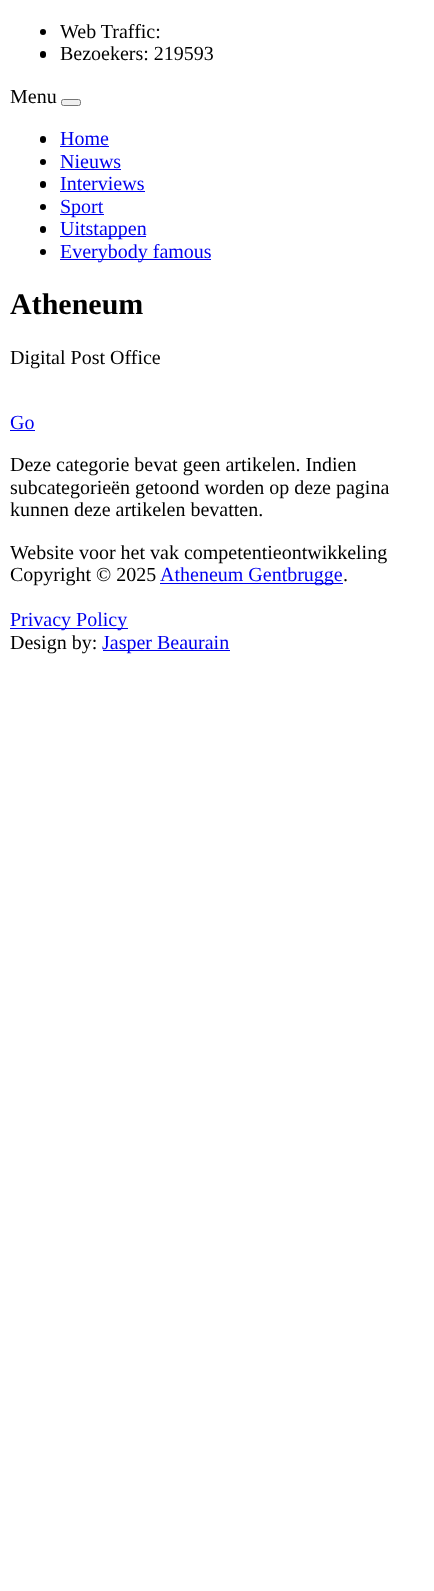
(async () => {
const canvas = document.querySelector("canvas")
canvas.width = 434
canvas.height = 1591
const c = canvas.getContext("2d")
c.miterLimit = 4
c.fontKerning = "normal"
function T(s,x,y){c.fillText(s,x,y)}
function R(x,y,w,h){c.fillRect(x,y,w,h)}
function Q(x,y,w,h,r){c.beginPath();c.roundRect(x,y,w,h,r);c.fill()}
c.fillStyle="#fff"
R(0,0,434,1591)
c.fillStyle="#000"
c.beginPath()
c.arc(43,32,3,0,7)
c.fill()
c.font="20px Liberation Serif"
T("Web Traffic:",60,38)
Q(40,51,6,7,3)
T("Bezoekers: 219593",60,60)
T("Menu",10,103)
c.fillStyle="#efefef"
c.beginPath()
c.roundRect(61.5,99.5,19,6,2)
c.fill()
c.strokeStyle="#767676"
c.stroke()
c.fillStyle="#000"
Q(40,136,6,7,3)
c.fillStyle="#00e"
T("Home",60,145)
R(60,146,49,1)
c.fillStyle="#000"
c.beginPath()
c.arc(43,162,3,0,7)
c.fill()
c.fillStyle="#00e"
T("Nieuws",60,168)
R(60,169,61,1)
c.fillStyle="#000"
Q(40,181,6,7,3)
c.fillStyle="#00e"
T("Interviews",60,190)
R(60,191,85,1)
c.fillStyle="#000"
c.beginPath()
c.arc(43,207,3,0,7)
c.fill()
c.fillStyle="#00e"
R(60,214,44,1)
T("Sport",60,213)
c.fillStyle="#000"
Q(40,226,6,7,3)
c.fillStyle="#00e"
R(60,236,86,1)
T("Uitstappen",60,235)
c.fillStyle="#000"
c.beginPath()
c.arc(43,252,3,0,7)
c.fill()
c.fillStyle="#00e"
R(60,259,151,1)
T("Everybody famous",60,258)
c.font="bold 30px Liberation Serif"
c.fillStyle="#000"
T("Atheneum",10,314)
c.font="20px Liberation Serif"
T("Digital Post Office",10,364)
c.fillStyle="#00e"
T("Go",10,429)
R(10,430,25,1)
c.fillStyle="#000"
T("Deze categorie bevat geen artikelen. Indien",10,471)
T("subcategorieën getoond worden op deze pagina",10,494)
T("kunnen deze artikelen bevatten.",10,516)
T("Website voor het vak competentieontwikkeling",10,559)
T("Copyright © 2025",10,581)
c.fillStyle="#00e"
R(160,583,183,1)
T("Atheneum Gentbrugge",160,581)
c.fillStyle="#000"
T(".",343,581)
c.fillStyle="#00e"
R(10,628,118,1)
T("Privacy Policy",10,626)
c.fillStyle="#000"
T("Design by:",10,649)
c.fillStyle="#00e"
R(103,650,127,1)
T("Jasper Beaurain",102,649)
})()
